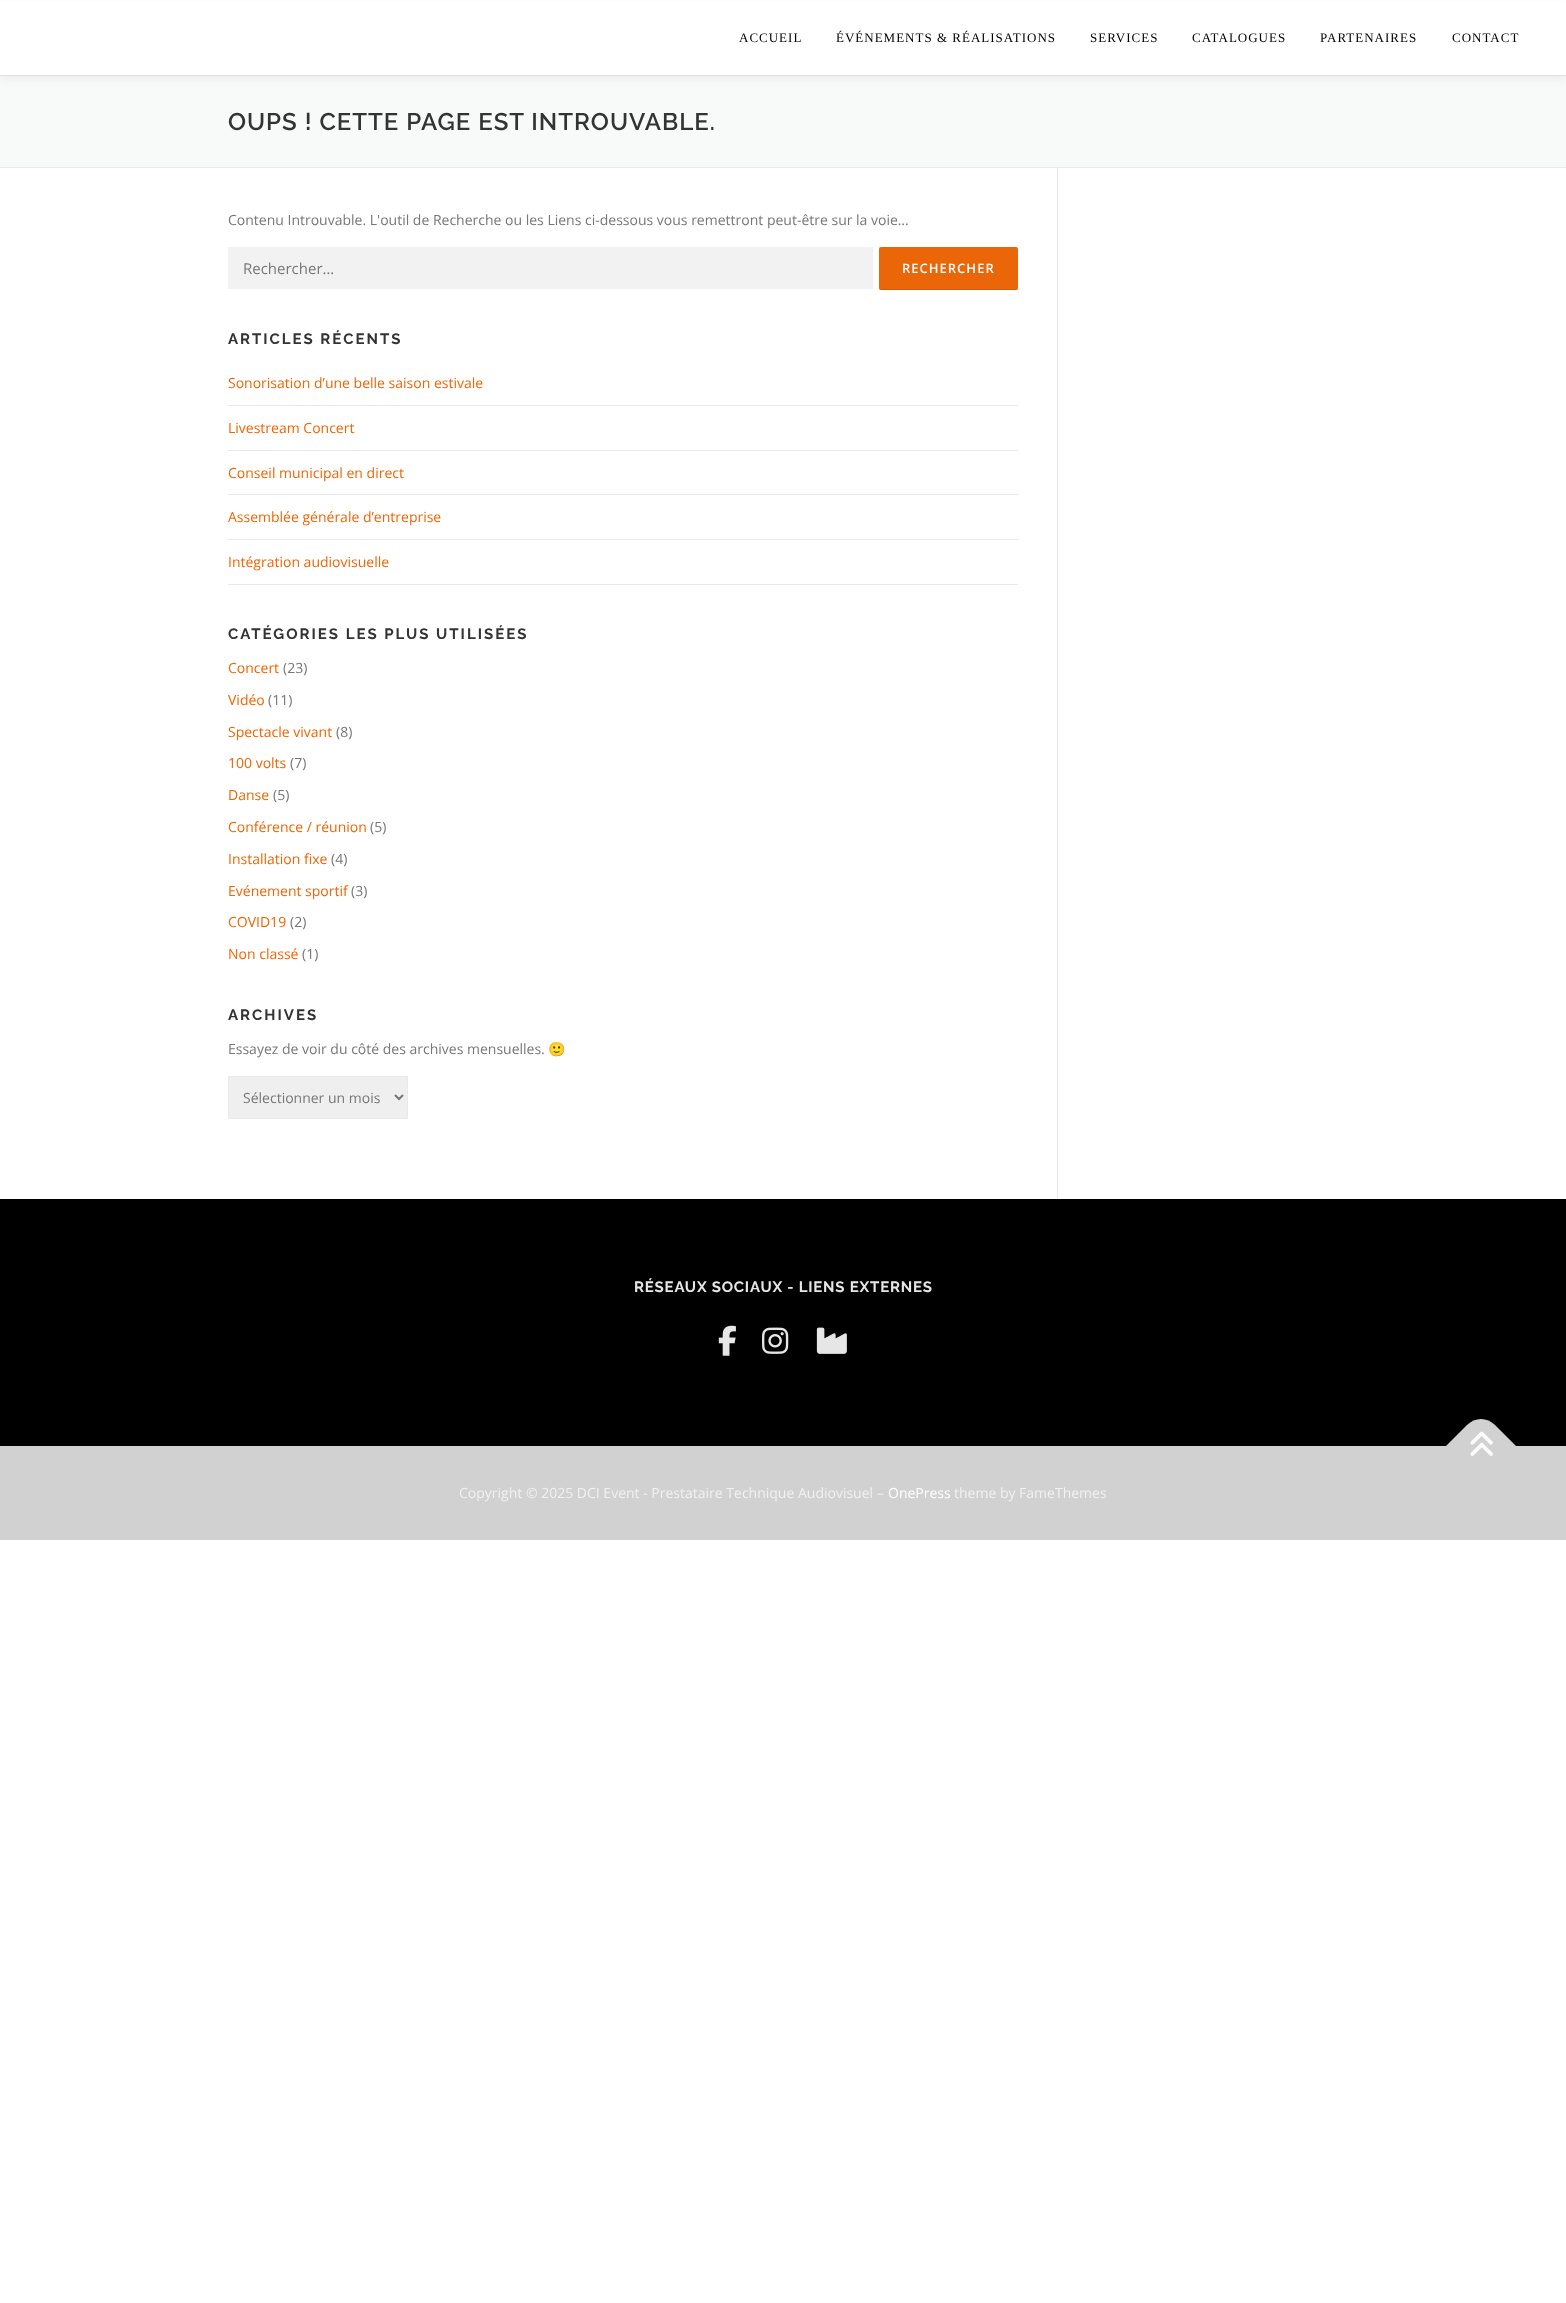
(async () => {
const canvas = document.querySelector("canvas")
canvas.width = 1566
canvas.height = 2303
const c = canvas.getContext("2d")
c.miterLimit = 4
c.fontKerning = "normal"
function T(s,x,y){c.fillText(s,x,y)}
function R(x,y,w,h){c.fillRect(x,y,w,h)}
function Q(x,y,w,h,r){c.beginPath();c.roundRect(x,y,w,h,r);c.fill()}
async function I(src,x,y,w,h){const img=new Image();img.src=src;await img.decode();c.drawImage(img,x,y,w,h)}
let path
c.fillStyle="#fff"
R(0,0,1566,2303)
c.fillStyle="#f8f9f9"
R(0,76,1566,91)
c.fillStyle="#e9e9e9"
R(0,75,1566,1)
c.fillStyle="#3232320f"
c.filter="blur(5px)"
c.beginPath()
c.rect(0,5,1566,75)
c.fill()
c.filter="none"
c.fillStyle="#fff"
R(0,1,1566,74)
c.letterSpacing="1px"
c.font="13px Liberation Serif"
c.fillStyle="#000"
T("ACCUEIL",739,42)
T("ÉVÉNEMENTS & RÉALISATIONS",836,42)
T("SERVICES",1090,42)
T("CATALOGUES",1192,42)
T("PARTENAIRES",1320,42)
T("CONTACT",1452,42)
c.fillStyle="#e9e9e9"
R(0,167,1566,1)
c.font="600 24px Raleway"
c.fillStyle="#333"
T("OUPS ! CETTE PAGE EST INTROUVABLE.",228,130)
c.fillStyle="#e9e9e9"
R(1057,168,1,1031)
c.letterSpacing="0px"
c.font="14px Open Sans"
c.fillStyle="#777"
T("Contenu Introuvable. L'outil de Recherche ou les Liens ci-dessous vous remettront peut-être sur la voie…",228,225)
c.fillStyle="#f2f2f2"
R(228,247,645,42)
c.font="15px Open Sans"
c.fillStyle="#777"
T("Rechercher…",243,274)
c.fillStyle="#eb6608"
Q(879,247,139,43,2)
c.fillStyle="#0000001a"
path = new Path2D("M879 287c0 1 0 3 2 3h135c2 0 2-2 2-3c0 1-1 2-2 2h-135c-1 0-2-1-2-2z")
c.fill(path)
c.letterSpacing="1px"
c.font="600 13px Open Sans"
c.fillStyle="#fff"
T("RECHERCHER",902,273)
c.letterSpacing="2px"
c.font="bold 15px Raleway"
c.fillStyle="#333"
T("ARTICLES RÉCENTS",228,344)
c.fillStyle="#e9e9e9"
R(228,405,790,1)
c.letterSpacing="0px"
c.font="14px Open Sans"
c.fillStyle="#eb6608"
T("Sonorisation d’une belle saison estivale",228,388)
c.fillStyle="#e9e9e9"
R(228,450,790,1)
c.fillStyle="#eb6608"
T("Livestream Concert",228,433)
c.fillStyle="#e9e9e9"
R(228,494,790,1)
c.fillStyle="#eb6608"
T("Conseil municipal en direct",228,478)
c.fillStyle="#e9e9e9"
R(228,539,790,1)
c.fillStyle="#eb6608"
T("Assemblée générale d’entreprise",228,522)
c.fillStyle="#e9e9e9"
R(228,584,790,1)
c.fillStyle="#eb6608"
T("Intégration audiovisuelle",228,567)
c.letterSpacing="2px"
c.font="bold 15px Raleway"
c.fillStyle="#333"
T("CATÉGORIES LES PLUS UTILISÉES",228,639)
c.letterSpacing="0px"
c.font="14px Open Sans"
c.fillStyle="#eb6608"
T("Concert",228,673)
c.fillStyle="#777"
T("(23)",283,673)
c.fillStyle="#eb6608"
T("Vidéo",228,705)
c.fillStyle="#777"
T("(11)",268,705)
c.fillStyle="#eb6608"
T("Spectacle vivant",228,737)
c.fillStyle="#777"
T("(8)",336,737)
c.fillStyle="#eb6608"
T("100 volts",228,768)
c.fillStyle="#777"
T("(7)",290,768)
c.fillStyle="#eb6608"
T("Danse",228,800)
c.fillStyle="#777"
T("(5)",273,800)
c.fillStyle="#eb6608"
T("Conférence / réunion",228,832)
c.fillStyle="#777"
T("(5)",370,832)
c.fillStyle="#eb6608"
T("Installation fixe",228,864)
c.fillStyle="#777"
T("(4)",331,864)
c.fillStyle="#eb6608"
T("Evénement sportif",228,896)
c.fillStyle="#777"
T("(3)",351,896)
c.fillStyle="#eb6608"
T("COVID19",228,927)
c.fillStyle="#777"
T("(2)",290,927)
c.fillStyle="#eb6608"
T("Non classé",228,959)
c.fillStyle="#777"
T("(1)",302,959)
c.letterSpacing="2px"
c.font="bold 15px Raleway"
c.fillStyle="#333"
T("ARCHIVES",228,1020)
c.letterSpacing="0px"
c.font="14px Open Sans"
c.fillStyle="#777"
T("Essayez de voir du côté des archives mensuelles.",228,1054)
c.font="14px Noto Color Emoji"
T("🙂",548,1054)
c.fillStyle="#efefef"
c.beginPath()
c.rect(228.5,1076.5,179,42)
c.fill()
c.strokeStyle="#e9e9e9"
c.stroke()
path = new Path2D("M395 1095l4 4l4-4")
c.strokeStyle="#777"
c.lineWidth=2
c.stroke(path)
c.font="14px Open Sans"
c.fillStyle="#777"
T("Sélectionner un mois",243,1103)
c.fillStyle="#000"
R(0,1199,1566,247)
c.letterSpacing="0.8px"
c.font="bold 15px Raleway"
c.fillStyle="#e6e6e6"
T("RÉSEAUX SOCIAUX - LIENS EXTERNES",634,1292)
await I("1.png",718,1325,18,31)
await I("2.png",762,1327,27,27)
await I("3.png",816,1327,31,27)
c.fillStyle="#d1d1d1"
R(0,1446,1566,94)
path = new Path2D("M1446 1446l21-21c8-8 20-8 28 0l21 21l-35 36z")
c.fill(path)
await I("4.png",1470,1431,23,25)
c.letterSpacing="0px"
c.font="14px Open Sans"
c.fillStyle="#f1f1f1"
T("Copyright © 2025 DCI Event - Prestataire Technique Audiovisuel –",459,1498)
c.fillStyle="#fff"
T("OnePress",888,1498)
c.fillStyle="#f1f1f1"
T("theme by FameThemes",954,1498)
})()
